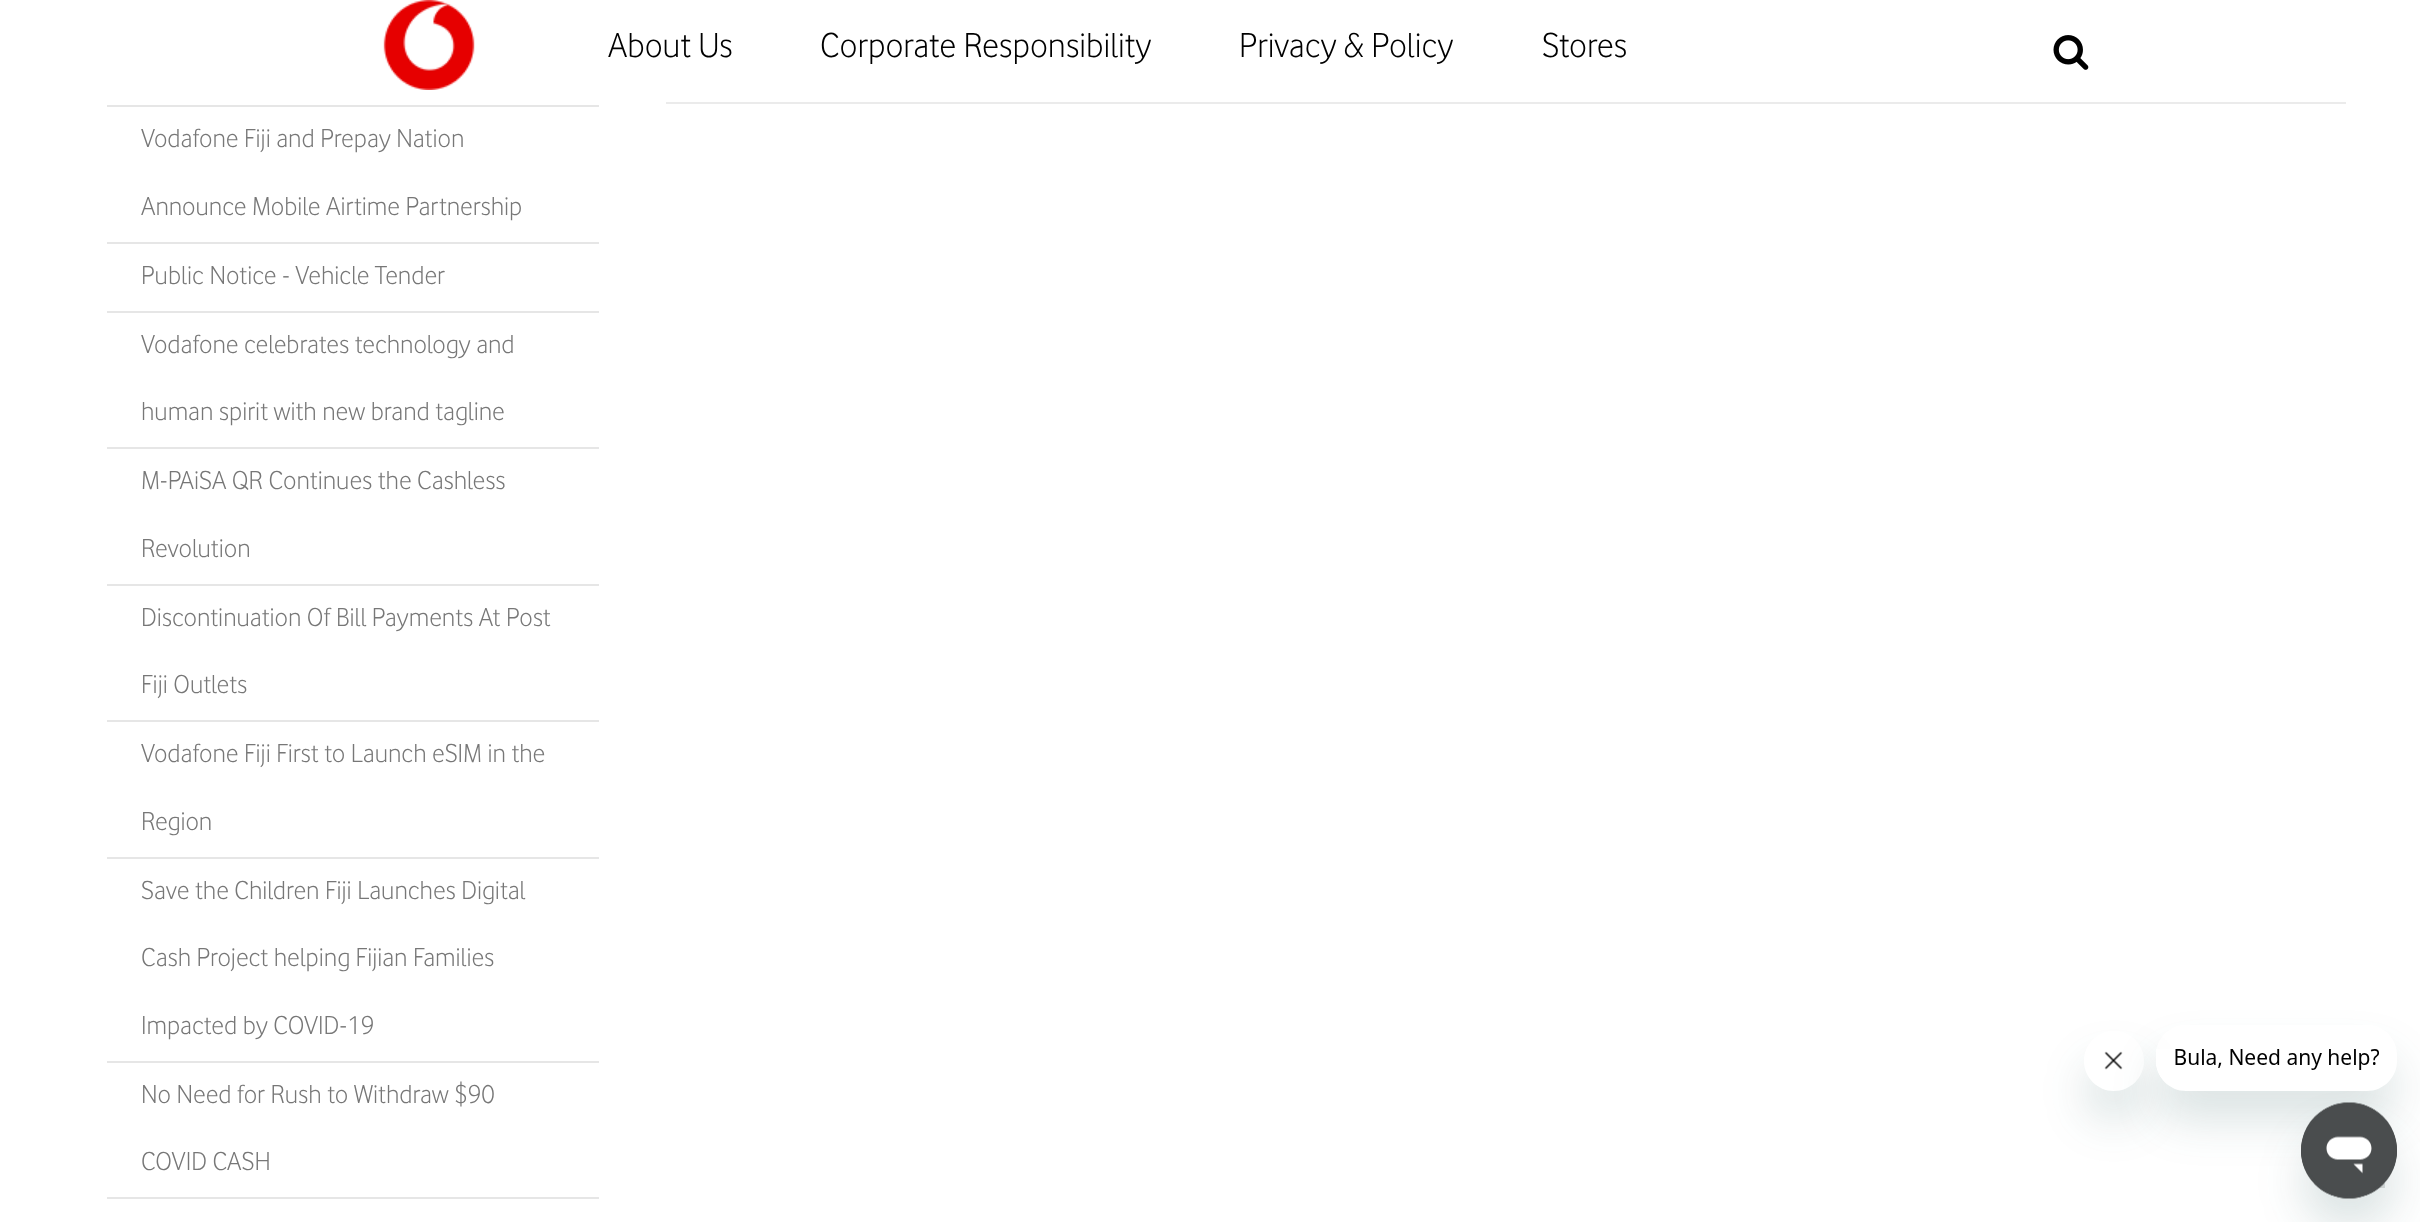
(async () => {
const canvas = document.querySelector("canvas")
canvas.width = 2420
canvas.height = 1222
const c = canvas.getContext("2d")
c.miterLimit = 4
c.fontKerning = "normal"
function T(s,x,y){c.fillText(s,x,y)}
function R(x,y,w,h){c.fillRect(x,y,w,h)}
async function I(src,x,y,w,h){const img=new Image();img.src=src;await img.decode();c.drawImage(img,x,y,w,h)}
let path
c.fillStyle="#fff"
R(0,0,2420,1222)
await I("1.png",383,0,92,90)
c.font="36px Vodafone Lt"
c.fillStyle="#000"
T("About Us",608,57)
T("Corporate Responsibility",820,57)
T("Privacy & Policy",1239,57)
T("Stores",1542,57)
await I("2.png",2053,35,36,35)
c.fillStyle="#ebebeb"
R(666,102,1680,2)
c.fillStyle="#e6e6e6"
R(107,105,492,2)
c.font="27px Vodafone Lt"
c.fillStyle="#777"
T("Vodafone Fiji and Prepay Nation",141,147)
T("Announce Mobile Airtime Partnership",141,215)
c.fillStyle="#e6e6e6"
R(107,242,492,2)
c.fillStyle="#777"
T("Public Notice - Vehicle Tender",141,284)
c.fillStyle="#e6e6e6"
R(107,311,492,2)
c.fillStyle="#777"
T("Vodafone celebrates technology and",141,353)
T("human spirit with new brand tagline",141,420)
c.fillStyle="#e6e6e6"
R(107,447,492,2)
c.fillStyle="#777"
T("M-PAiSA QR Continues the Cashless",141,489)
T("Revolution",141,557)
c.fillStyle="#e6e6e6"
R(107,584,492,2)
c.fillStyle="#777"
T("Discontinuation Of Bill Payments At Post",141,626)
T("Fiji Outlets",141,693)
c.fillStyle="#e6e6e6"
R(107,720,492,2)
c.fillStyle="#777"
T("Vodafone Fiji First to Launch eSIM in the",141,762)
T("Region",141,830)
c.fillStyle="#e6e6e6"
R(107,857,492,2)
c.fillStyle="#777"
T("Save the Children Fiji Launches Digital",141,899)
T("Cash Project helping Fijian Families",141,966)
T("Impacted by COVID-19",141,1034)
c.fillStyle="#e6e6e6"
R(107,1061,492,2)
c.fillStyle="#777"
T("No Need for Rush to Withdraw $90",141,1103)
T("COVID CASH",141,1170)
c.fillStyle="#e6e6e6"
R(107,1197,492,2)
c.save()
path = new Path2D("M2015 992h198v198h-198zm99 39c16.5 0 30 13.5 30 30c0 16.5-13.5 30-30 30c-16.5 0-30-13.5-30-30c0-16.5 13.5-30 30-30z")
c.clip(path,"evenodd")
c.fillStyle="#17494d26"
c.filter="blur(22.5px)"
c.beginPath()
c.roundRect(2084,1061,60,60,30)
c.fill()
c.filter="none"
c.restore()
await I("4.png",2102,1051,23,40)
c.fillStyle="#dedede"
R(2378,1182,7,6)
c.save()
path = new Path2D("M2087 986h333v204h-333zm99 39h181c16.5 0 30 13.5 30 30v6c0 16.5-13.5 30-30 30h-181c-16.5 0-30-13.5-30-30v-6c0-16.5 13.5-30 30-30z")
c.clip(path,"evenodd")
c.fillStyle="#17494d26"
c.filter="blur(22.5px)"
c.beginPath()
c.roundRect(2156,1055,241,66,30)
c.fill()
c.filter="none"
c.restore()
await I("3.png",2156,1049,223,41)
c.fillStyle="#17494d26"
c.filter="blur(22.5px)"
c.beginPath()
c.roundRect(2301,1133,96,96,48)
c.fill()
c.filter="none"
await I("5.png",2301,1102,96,97)
})()
